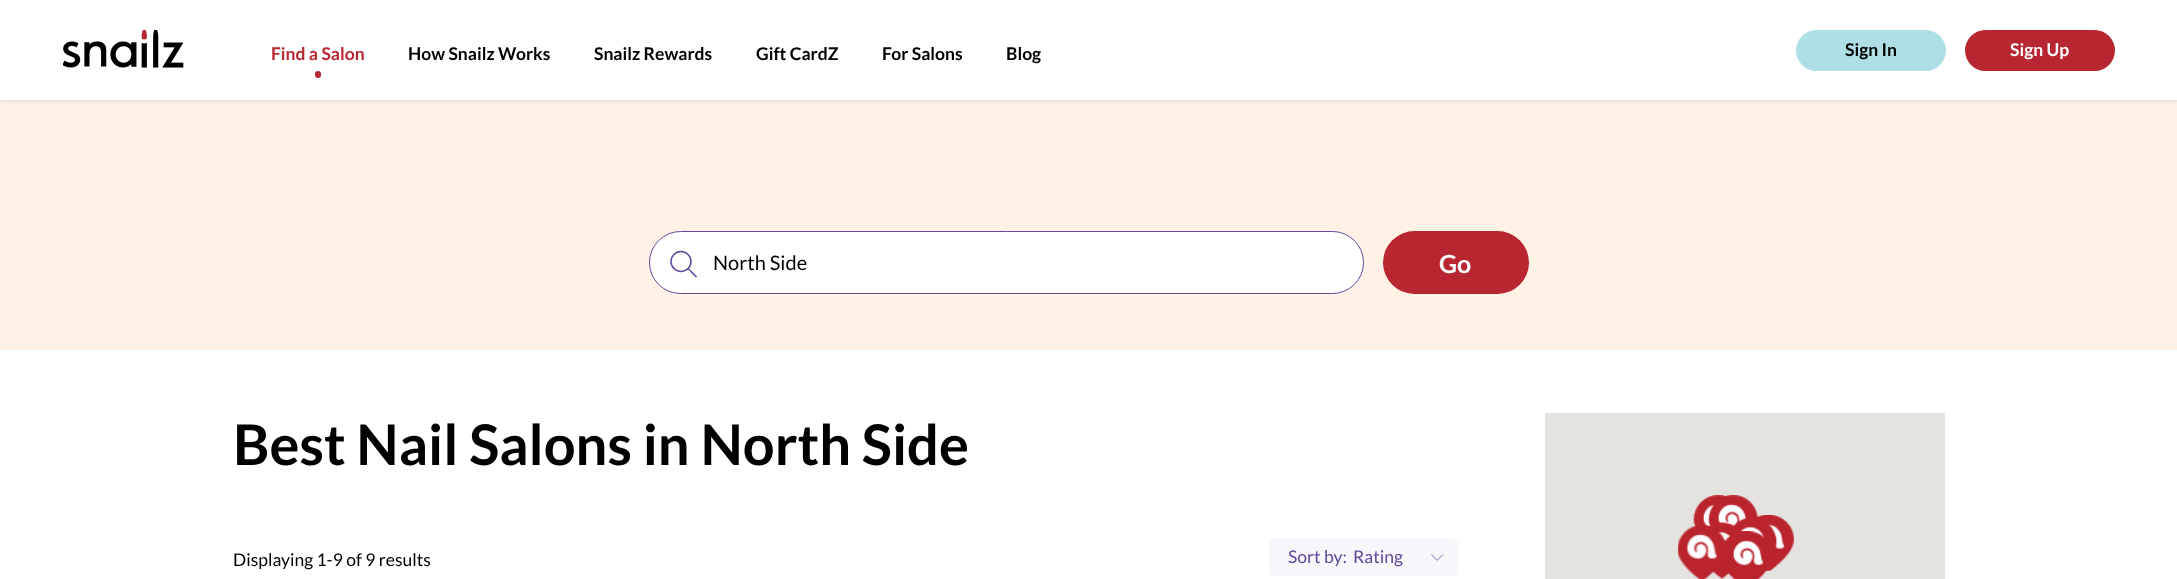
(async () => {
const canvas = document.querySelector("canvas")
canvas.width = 2177
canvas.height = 579
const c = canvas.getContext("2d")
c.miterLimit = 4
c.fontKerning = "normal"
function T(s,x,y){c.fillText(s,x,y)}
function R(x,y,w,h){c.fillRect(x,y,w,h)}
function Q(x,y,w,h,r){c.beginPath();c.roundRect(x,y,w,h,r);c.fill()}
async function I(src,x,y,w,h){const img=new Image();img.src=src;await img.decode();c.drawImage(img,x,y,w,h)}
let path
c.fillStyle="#fff"
R(0,0,2177,579)
c.fillStyle="#fff1e6"
R(0,100,2177,250)
c.fillStyle="#dcdada"
c.filter="blur(2.5px)"
c.beginPath()
c.rect(0,1,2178,100)
c.fill()
c.filter="none"
c.fillStyle="#fff"
R(0,0,2177,100)
await I("1.png",63,30,121,38)
c.font="bold 17.5px Lato"
c.fillStyle="#b82632"
T("Find a Salon",271,60)
Q(315,71,6,7,3)
c.fillStyle="#000"
T("How Snailz Works",408,60)
T("Snailz Rewards",594,60)
T("Gift CardZ",756,60)
T("For Salons",882,60)
T("Blog",1006,60)
c.fillStyle="#aedfe7"
Q(1796,30,150,41,20.5)
c.font="bold 17.5px 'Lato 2'"
c.fillStyle="#000"
T("Sign In",1845,56)
c.fillStyle="#b82632"
Q(1965,30,150,41,20.5)
c.fillStyle="#fff"
T("Sign Up",2010,56)
c.beginPath()
c.roundRect(649.5,231.5,714,62,31)
c.fill()
c.strokeStyle="#61499a"
c.stroke()
c.beginPath()
c.arc(681,261.5,10,0,7)
c.lineWidth=1.5
c.stroke()
path = new Path2D("M688.5 269l7.5 7.5")
c.lineCap="square"
c.stroke(path)
c.font="20px Lato"
c.fillStyle="#000"
T("North Side",713,270)
c.fillStyle="#b82632"
Q(1383,231,146,63,31.5)
c.font="bold 25px Lato"
c.fillStyle="#fff"
T("Go",1439,273)
c.font="bold 56px Lato"
c.fillStyle="#000"
T("Best Nail Salons in North Side",233,465)
c.font="17.5px Lato"
T("Displaying 1-9 of 9 results",233,566)
c.fillStyle="#f7f6fa"
Q(1269,539,189,37,5)
c.fillStyle="#61499a"
T("Sort by:",1288,563)
await I("2.png",1431,554,13,7)
T("Rating",1353,563)
c.fillStyle="#e5e3df"
R(1545,413,400,166)
await I("3.png",1693,495,36,33)
await I("4.png",1708,495,50,33)
await I("5.png",1752,515,39,57)
await I("6.png",1755,515,40,56)
await I("8.png",1732,517,46,44)
await I("7.png",1707,522,36,57)
await I("9.png",1678,525,48,54)
await I("10.png",1724,531,39,48)
await I("11.png",1728,531,40,48)
})()
